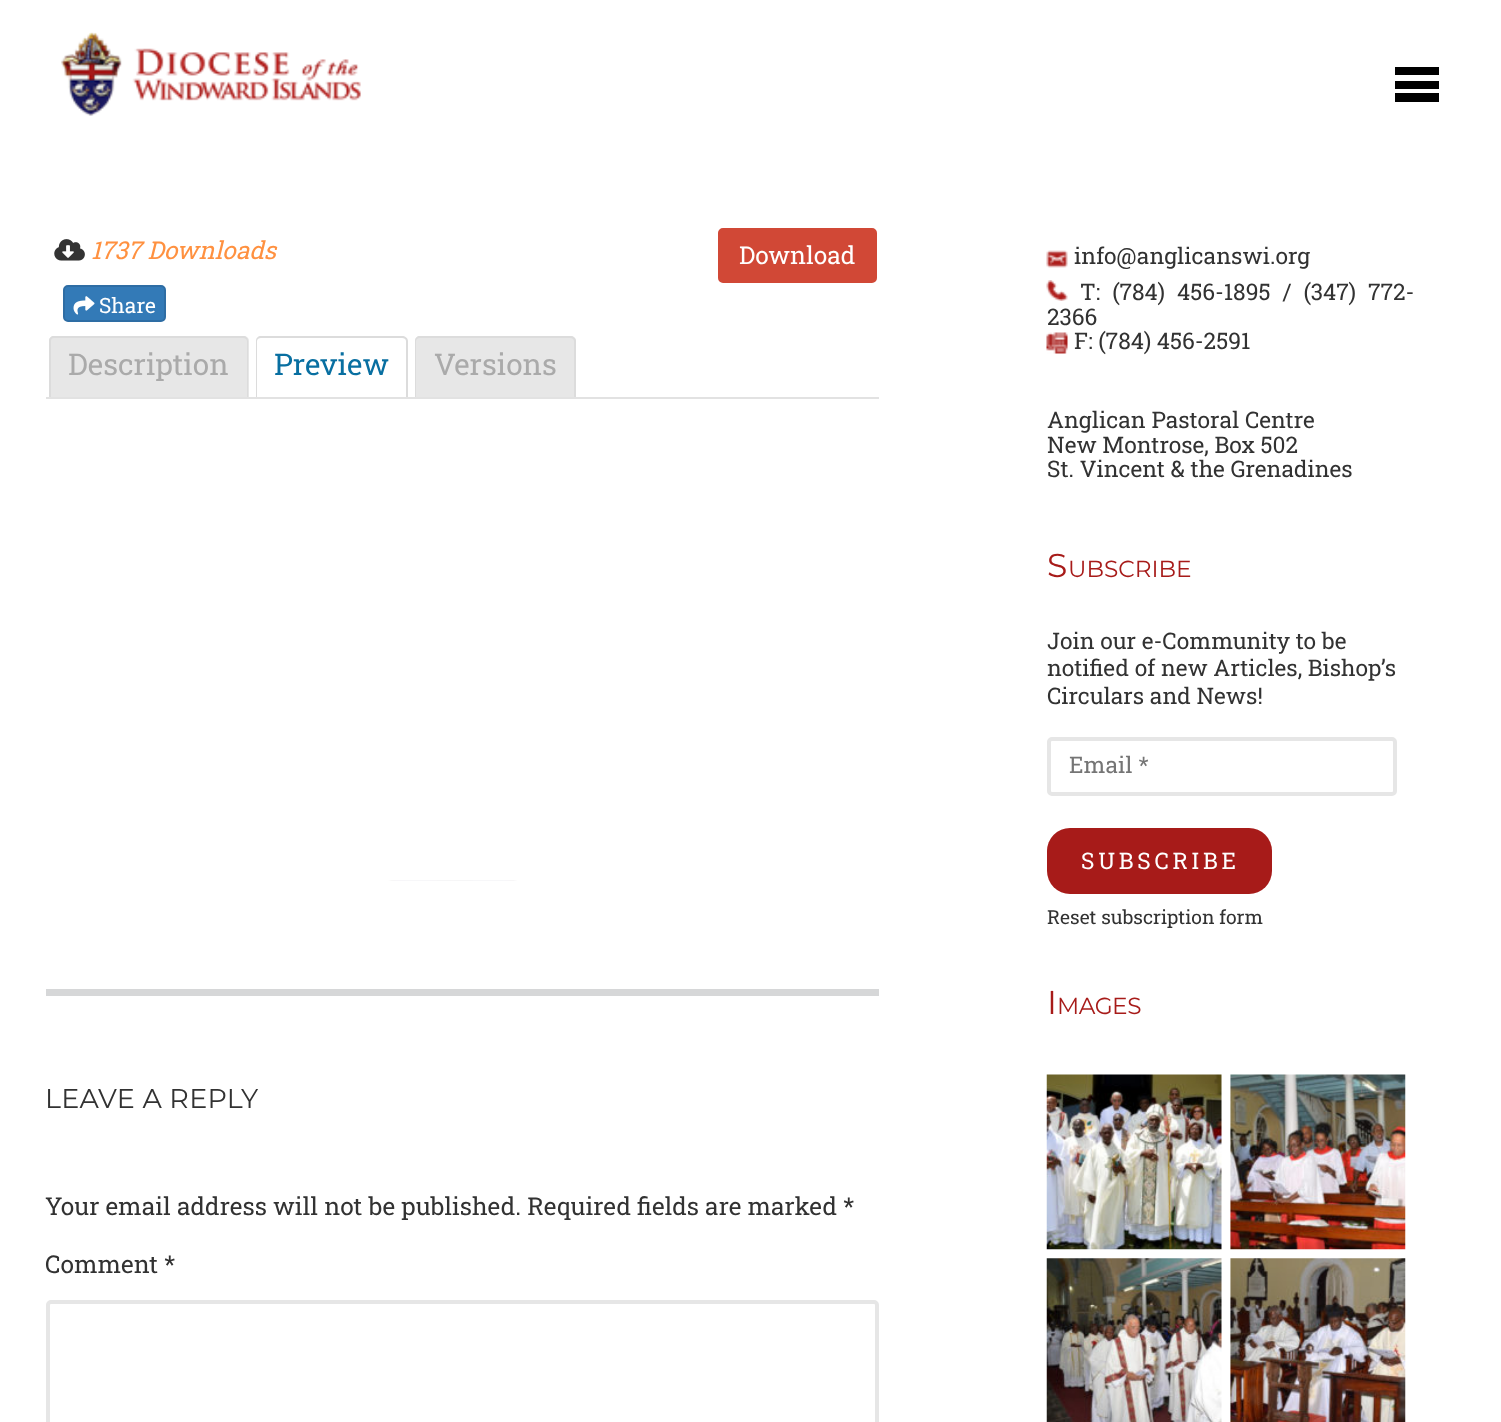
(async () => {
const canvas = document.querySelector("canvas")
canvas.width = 1501
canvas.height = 1422
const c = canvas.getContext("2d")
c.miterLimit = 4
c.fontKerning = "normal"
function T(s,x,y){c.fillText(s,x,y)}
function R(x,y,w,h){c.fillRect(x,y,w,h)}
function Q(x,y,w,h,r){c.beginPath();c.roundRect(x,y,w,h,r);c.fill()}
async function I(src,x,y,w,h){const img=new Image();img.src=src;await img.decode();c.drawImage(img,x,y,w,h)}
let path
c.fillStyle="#fff"
R(0,0,1501,1422)
await I("1.png",61,32,300,84)
c.fillStyle="#000"
R(1395,93,44,9)
R(1395,67,44,8)
R(1395,81,44,8)
await I("2.png",388,880,129,1)
await I("3.png",54,239,31,22)
c.font="italic 24.5px Roboto Slab"
c.fillStyle="#ff9140"
T("1737 Downloads",91,259)
c.fillStyle="#d14836"
c.beginPath()
c.roundRect(717,227,161,57,6)
c.fill()
c.strokeStyle="#fff"
c.lineWidth=2
c.stroke()
c.font="24.5px Roboto Slab"
c.fillStyle="#fff"
T("Download",739,264)
c.fillStyle="#337ab7"
c.beginPath()
c.roundRect(64,286,101,35,4)
c.fill()
c.strokeStyle="#2e6da4"
c.stroke()
await I("4.png",73,296,22,19)
c.font="21px Roboto Slab"
c.fillStyle="#fff"
T("Share",99,313)
c.fillStyle="#e7e7e7"
c.beginPath()
c.roundRect(49,336,200,61,[5,5,0,0])
c.fill()
c.fillStyle="#dcdcdc"
path = new Path2D("M54 336h189c3 0 5 2 5 5v56h-199v-56c0-3 2-5 5-5zm0 2h189c2 0 4 1 4 3v56h-196v-56c0-2 1-3 3-3z")
c.fill(path,"evenodd")
c.font="29.75px Roboto Slab"
c.fillStyle="#aaa"
T("Description",68,375)
c.fillStyle="#dcdcdc"
path = new Path2D("M261 336h141c3 0 6 2 6 5v56h-152v-56c0-3 2-5 5-5zm0 2h141c2 0 4 1 4 3v56h-149v-56c0-2 2-3 4-3z")
c.fill(path,"evenodd")
c.fillStyle="#086fa1"
T("Preview",274,375)
c.fillStyle="#e7e7e7"
c.beginPath()
c.roundRect(415,336,161,61,[5,5,0,0])
c.fill()
c.fillStyle="#dcdcdc"
path = new Path2D("M420 336h150c3 0 6 2 6 5v56h-161v-56c0-3 2-5 5-5zm0 2h150c2 0 4 1 4 3v56h-158v-56c0-2 2-3 4-3z")
c.fill(path,"evenodd")
c.fillStyle="#aaa"
T("Versions",434,375)
c.fillStyle="#e2e2e2"
R(46,397,833,2)
c.fillStyle="#d6d7d8"
R(46,989,833,7)
c.letterSpacing="0.25px"
c.font="27px Montserrat"
c.fillStyle="#323232"
T("LEAVE A REPLY",45,1108)
c.letterSpacing="0px"
c.font="24.5px Roboto Slab"
T("Your email address will not be published. Required fields are marked *",45,1215)
T("Comment *",45,1273)
c.beginPath()
c.roundRect(48,1302,829,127,3)
c.strokeStyle="#e6e6e6"
c.lineWidth=4
c.stroke()
await I("5.png",1046,250,22,18)
c.font="22.75px Roboto Slab"
T("info@anglicanswi.org",1074,264)
await I("6.png",1046,280,22,21)
c.wordSpacing="6.25px"
T("T: (784) 456-1895 / (347) 772-",1080,300)
c.wordSpacing="0px"
T("2366",1047,325)
await I("7.png",1046,332,22,22)
T("F: (784) 456-2591",1074,349)
T("Anglican Pastoral Centre",1047,428)
T("New Montrose, Box 502",1047,453)
T("St. Vincent & the Grenadines",1047,477)
c.font="33px Montserrat"
c.fillStyle="#a71b19"
T("S",1047,577)
c.font="23.25px Montserrat"
T("UBSCRIBE",1068,577)
c.font="22.75px Roboto Slab"
c.fillStyle="#323232"
T("Join our e-Community to be",1047,649)
T("notified of new Articles, Bishop’s",1047,676)
T("Circulars and News!",1047,704)
c.beginPath()
c.roundRect(1049,739,346,55,3)
c.stroke()
c.fillStyle="#757575"
T("Email *",1069,773)
c.fillStyle="#a71b19"
Q(1047,828,225,66,23)
c.letterSpacing="3.75px"
c.fillStyle="#fff"
T("SUBSCRIBE",1081,869)
c.letterSpacing="0px"
c.font="19.25px Roboto Slab"
c.fillStyle="#323232"
T("Reset subscription form",1047,924)
c.letterSpacing="-0.5px"
c.font="33px Montserrat"
c.fillStyle="#a71b19"
T("I",1047,1014)
c.font="23.25px Montserrat"
T("MAGES",1057,1014)
await I("8.png",1046,1074,176,176)
await I("9.png",1230,1074,176,176)
await I("10.png",1046,1258,176,164)
await I("11.png",1230,1258,176,164)
})()
